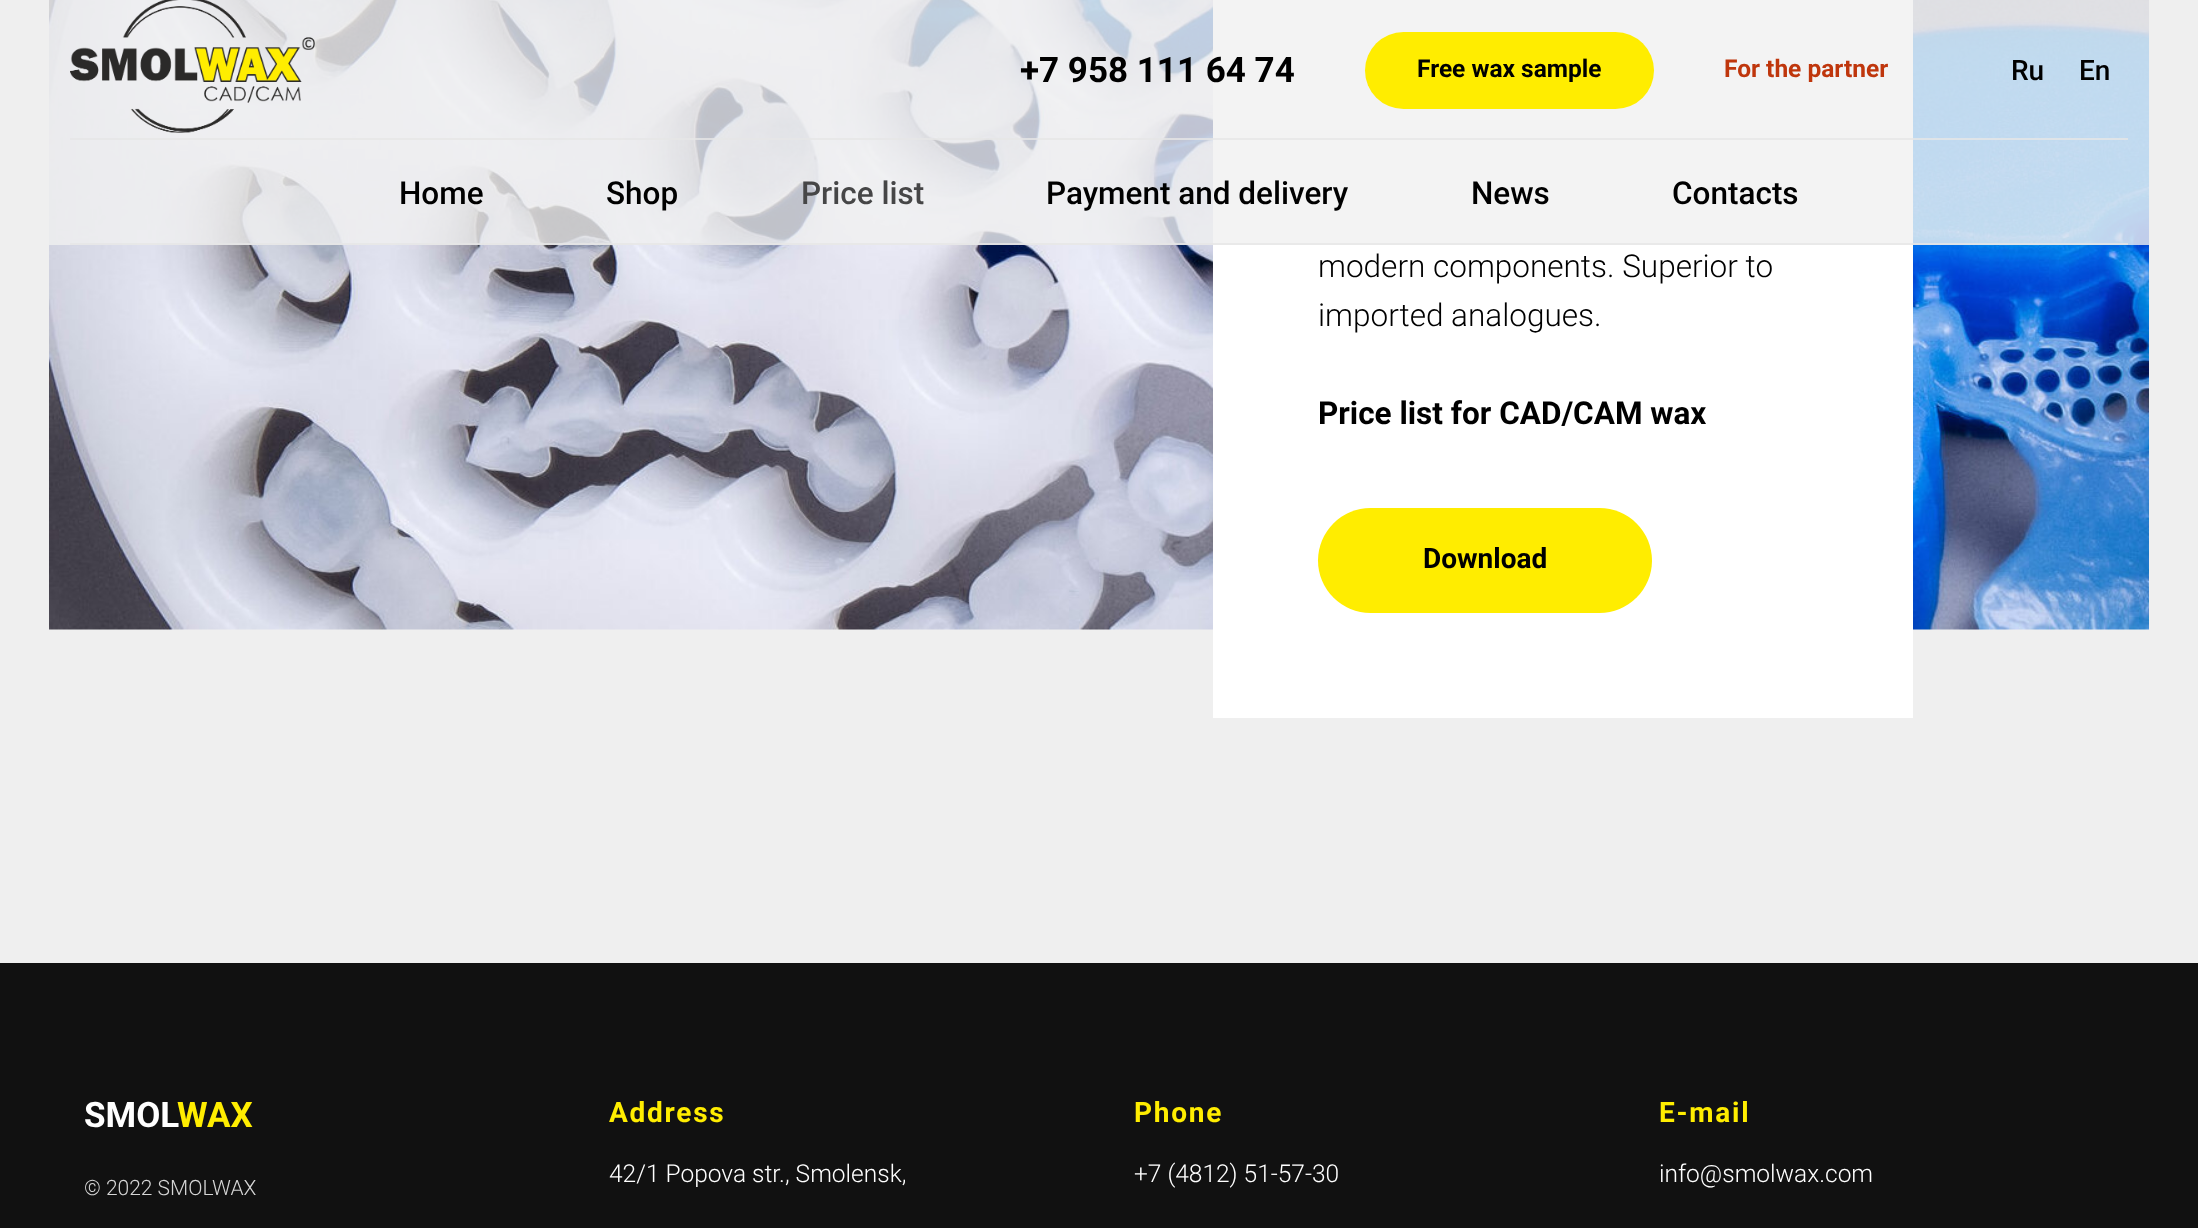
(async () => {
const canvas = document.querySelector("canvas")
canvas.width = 2198
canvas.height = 1228
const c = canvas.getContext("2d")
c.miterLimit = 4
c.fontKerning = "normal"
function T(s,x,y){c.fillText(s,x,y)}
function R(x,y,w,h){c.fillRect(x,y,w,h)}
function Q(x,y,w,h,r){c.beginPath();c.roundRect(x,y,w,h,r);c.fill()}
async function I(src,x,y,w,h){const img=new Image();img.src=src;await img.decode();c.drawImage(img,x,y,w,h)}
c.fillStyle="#efefef"
R(0,0,2198,1228)
await I("2.png",49,0,2100,630)
c.fillStyle="#fff"
R(1213,0,700,718)
c.fillStyle="#f0f0f0cc"
R(49,0,2100,245)
await I("1.png",70,0,245,133)
c.font="bold 35px Roboto"
c.fillStyle="#000"
T("+7 958 111 64 74",1020,82)
c.fillStyle="#ffed00"
Q(1365,32,289,77,38.5)
c.save()
c.beginPath()
c.rect(1418,53,183,35)
c.clip()
c.font="bold 24.5px Roboto"
c.fillStyle="#000"
T("Free wax sample",1417,77)
c.restore()
c.font="bold 24.5px Roboto"
c.fillStyle="#bf360c"
T("For the partner",1724,77)
c.font="500 28px Roboto"
c.fillStyle="#000"
T("Ru",2011,80)
T("En",2079,80)
c.fillStyle="#e6e6e6cc"
R(70,138,2058,2)
c.font="500 31.5px Roboto"
c.fillStyle="#000"
T("Home",399,204)
T("Shop",606,204)
c.fillStyle="#464647"
T("Price list",801,204)
c.fillStyle="#000"
T("Payment and delivery",1046,204)
T("News",1471,204)
T("Contacts",1672,204)
c.fillStyle="#e6e6e6cc"
R(70,243,2058,2)
c.font="300 31.5px Roboto"
c.fillStyle="#000"
T("modern components. Superior to",1318,277)
T("imported analogues.",1318,326)
c.font="bold 31.5px Roboto"
T("Price list for CAD/CAM wax",1318,424)
c.fillStyle="#ffed00"
Q(1318,508,334,105,52.5)
c.font="bold 28px Roboto"
c.fillStyle="#000"
T("Download",1423,568)
c.fillStyle="#111"
R(0,963,2198,265)
c.font="bold 35px Roboto"
c.fillStyle="#fff"
T("SMOL",84,1127)
c.fillStyle="#ffed00"
T("WAX",177,1127)
c.font="300 21px Roboto"
c.fillStyle="#d6d6d6"
T("© 2022 SMOLWAX",84,1195)
c.letterSpacing="1.75px"
c.font="bold 28px Roboto"
c.fillStyle="#ffed00"
T("Address",609,1122)
c.letterSpacing="0px"
c.font="300 24.5px Roboto"
c.fillStyle="#fff"
T("42/1 Popova str., Smolensk,",609,1182)
c.letterSpacing="1.75px"
c.font="bold 28px Roboto"
c.fillStyle="#ffed00"
T("Phone",1134,1122)
c.letterSpacing="0px"
c.font="300 24.5px Roboto"
c.fillStyle="#fff"
T("+7 (4812) 51-57-30",1134,1182)
c.letterSpacing="1.75px"
c.font="bold 28px Roboto"
c.fillStyle="#ffed00"
T("E-mail",1659,1122)
c.letterSpacing="0px"
c.font="300 24.5px Roboto"
c.fillStyle="#fff"
T("info@smolwax.com",1659,1182)
})()
